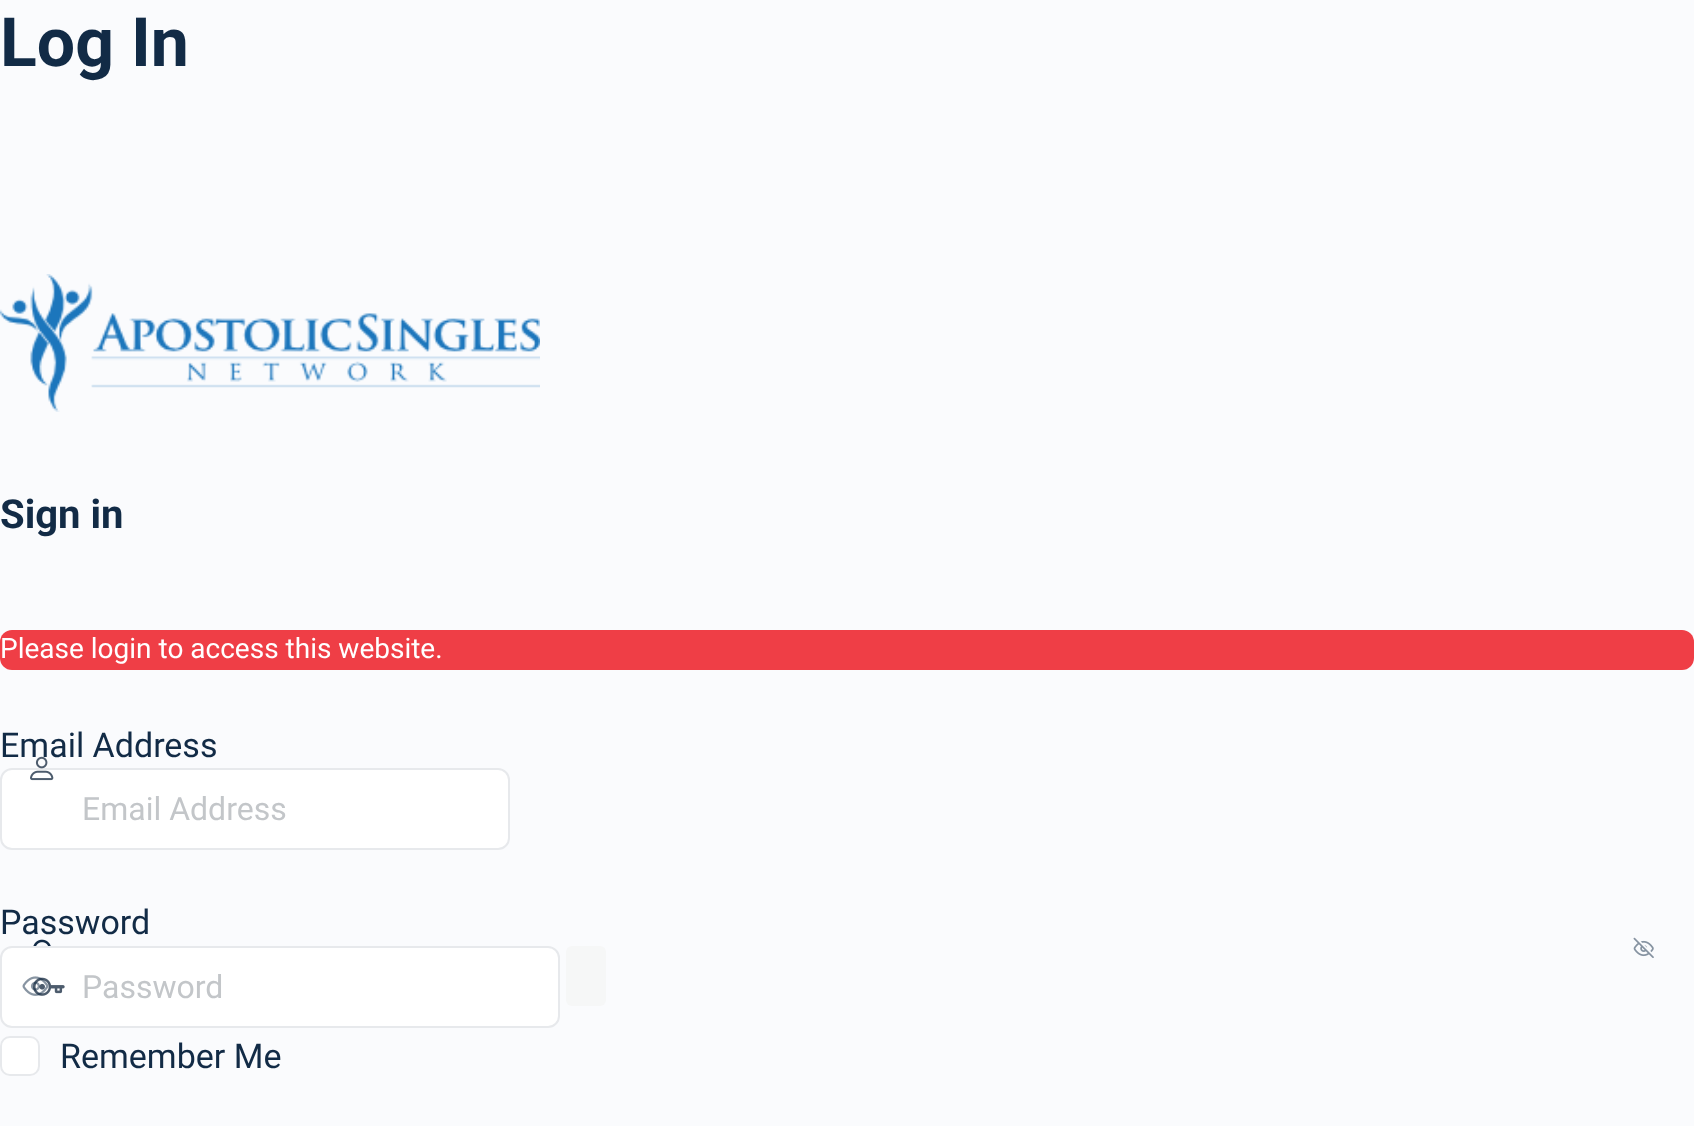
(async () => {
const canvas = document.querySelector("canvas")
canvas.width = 1694
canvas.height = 1126
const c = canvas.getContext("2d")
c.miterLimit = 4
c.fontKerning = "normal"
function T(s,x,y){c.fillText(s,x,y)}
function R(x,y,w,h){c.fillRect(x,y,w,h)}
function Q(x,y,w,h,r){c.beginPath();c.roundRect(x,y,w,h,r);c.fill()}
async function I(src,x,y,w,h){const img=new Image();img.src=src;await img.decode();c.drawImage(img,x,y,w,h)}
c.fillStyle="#fafbfd"
R(0,0,1694,1126)
c.font="bold 68px Roboto"
c.fillStyle="#122b46"
T("Log In",0,66)
await I("1.png",0,274,540,138)
c.font="bold 40px Roboto"
T("Sign in",0,528)
c.fillStyle="#ef3e46"
Q(0,630,1694,40,12)
c.font="28px Roboto"
c.fillStyle="#fff"
T("Please login to access this website.",0,658)
c.font="34px Roboto"
c.fillStyle="#122b46"
T("Email Address",0,757)
c.fillStyle="#fff"
c.beginPath()
c.roundRect(1,769,508,80,11)
c.fill()
c.strokeStyle="#e7e9ec"
c.lineWidth=2
c.stroke()
await I("2.png",30,756,24,25)
c.font="32px Roboto"
c.fillStyle="#c3c6c9"
T("Email Address",82,820)
c.font="34px Roboto"
c.fillStyle="#122b46"
T("Password",0,934)
await I("3.png",33,939,18,7)
await I("4.png",1633,937,21,21)
c.fillStyle="#f6f7f7"
Q(566,946,40,60,6)
c.fillStyle="#fff"
c.beginPath()
c.roundRect(1,947,558,80,11)
c.fill()
c.stroke()
await I("6.png",33,977,32,19)
await I("5.png",22,976,27,20)
c.font="32px Roboto"
c.fillStyle="#c3c6c9"
T("Password",82,998)
c.fillStyle="#fff"
c.beginPath()
c.roundRect(1,1037,38,38,9)
c.fill()
c.stroke()
c.font="34px Roboto"
c.fillStyle="#122b46"
T("Remember Me",60,1068)
})()
